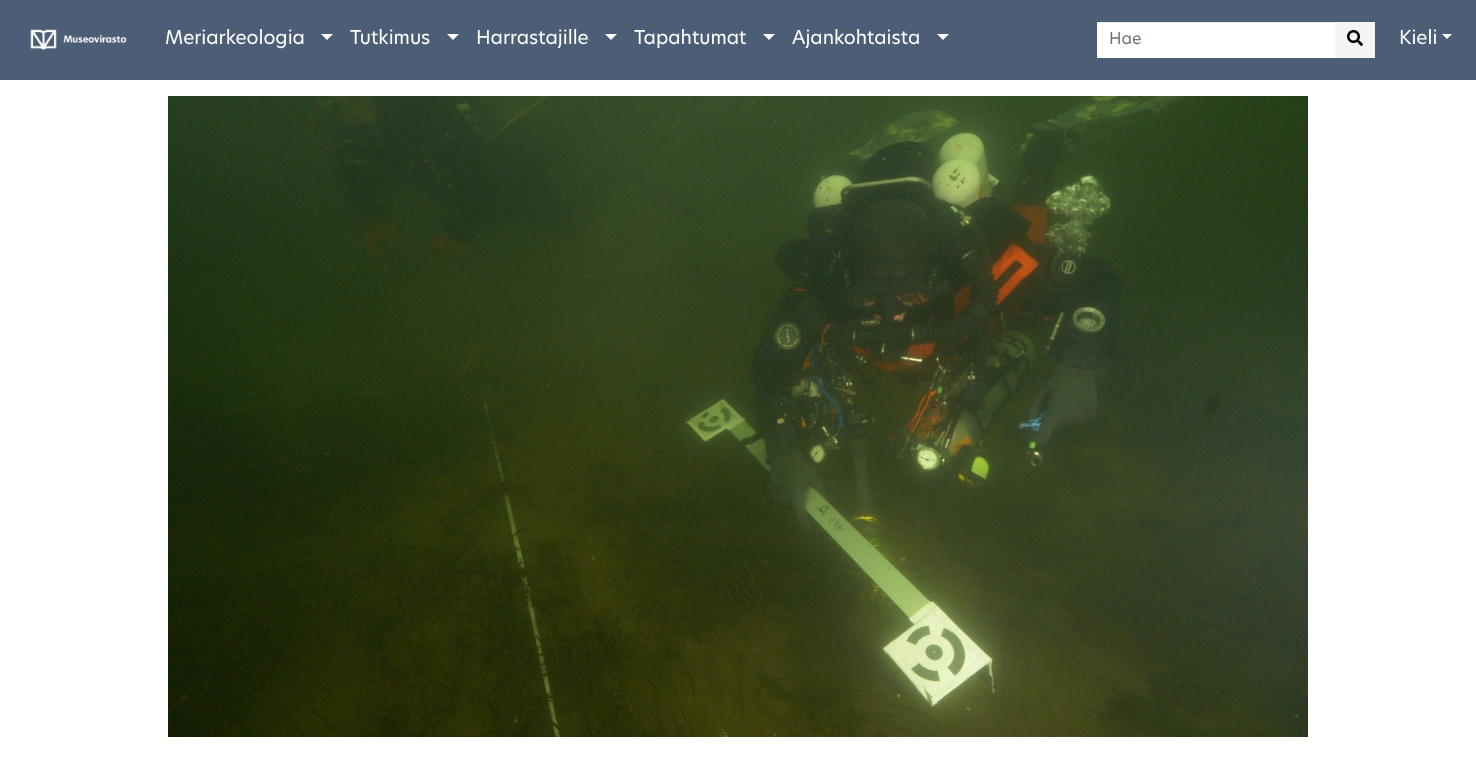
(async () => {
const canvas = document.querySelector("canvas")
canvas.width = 1476
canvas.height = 773
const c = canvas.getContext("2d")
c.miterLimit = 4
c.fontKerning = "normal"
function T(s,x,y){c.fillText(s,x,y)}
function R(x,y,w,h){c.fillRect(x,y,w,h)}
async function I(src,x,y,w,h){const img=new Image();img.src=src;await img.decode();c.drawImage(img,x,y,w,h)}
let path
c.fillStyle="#fff"
R(0,0,1476,773)
c.fillStyle="#4b5e75"
R(0,0,1476,80)
await I("1.png",30,29,97,21)
c.font="18.75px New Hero"
c.fillStyle="#fff"
T("Meriarkeologia",165,44)
path = new Path2D("M321 34h12l-6 6z")
c.fill(path)
T("Tutkimus",350,44)
path = new Path2D("M447 34h12l-6 6z")
c.fill(path)
T("Harrastajille",476,44)
path = new Path2D("M605 34h12l-6 6z")
c.fill(path)
T("Tapahtumat",634,44)
path = new Path2D("M763 34h12l-6 6z")
c.fill(path)
T("Ajankohtaista",792,44)
path = new Path2D("M937 34h12l-6 6z")
c.fill(path)
R(1097,23,238,35)
c.fillStyle="#ececec"
R(1097,22,238,1)
c.font="16px New Hero"
c.fillStyle="#6c757d"
T("Hae",1109,44)
c.fillStyle="#f5f5f5"
R(1335,22,40,36)
await I("2.png",1347,30,16,16)
c.font="18.75px New Hero"
c.fillStyle="#fff"
T("Kieli",1399,44)
path = new Path2D("M1442 34h10l-5 5z")
c.fill(path)
await I("3.png",168,96,1140,641)
})()
